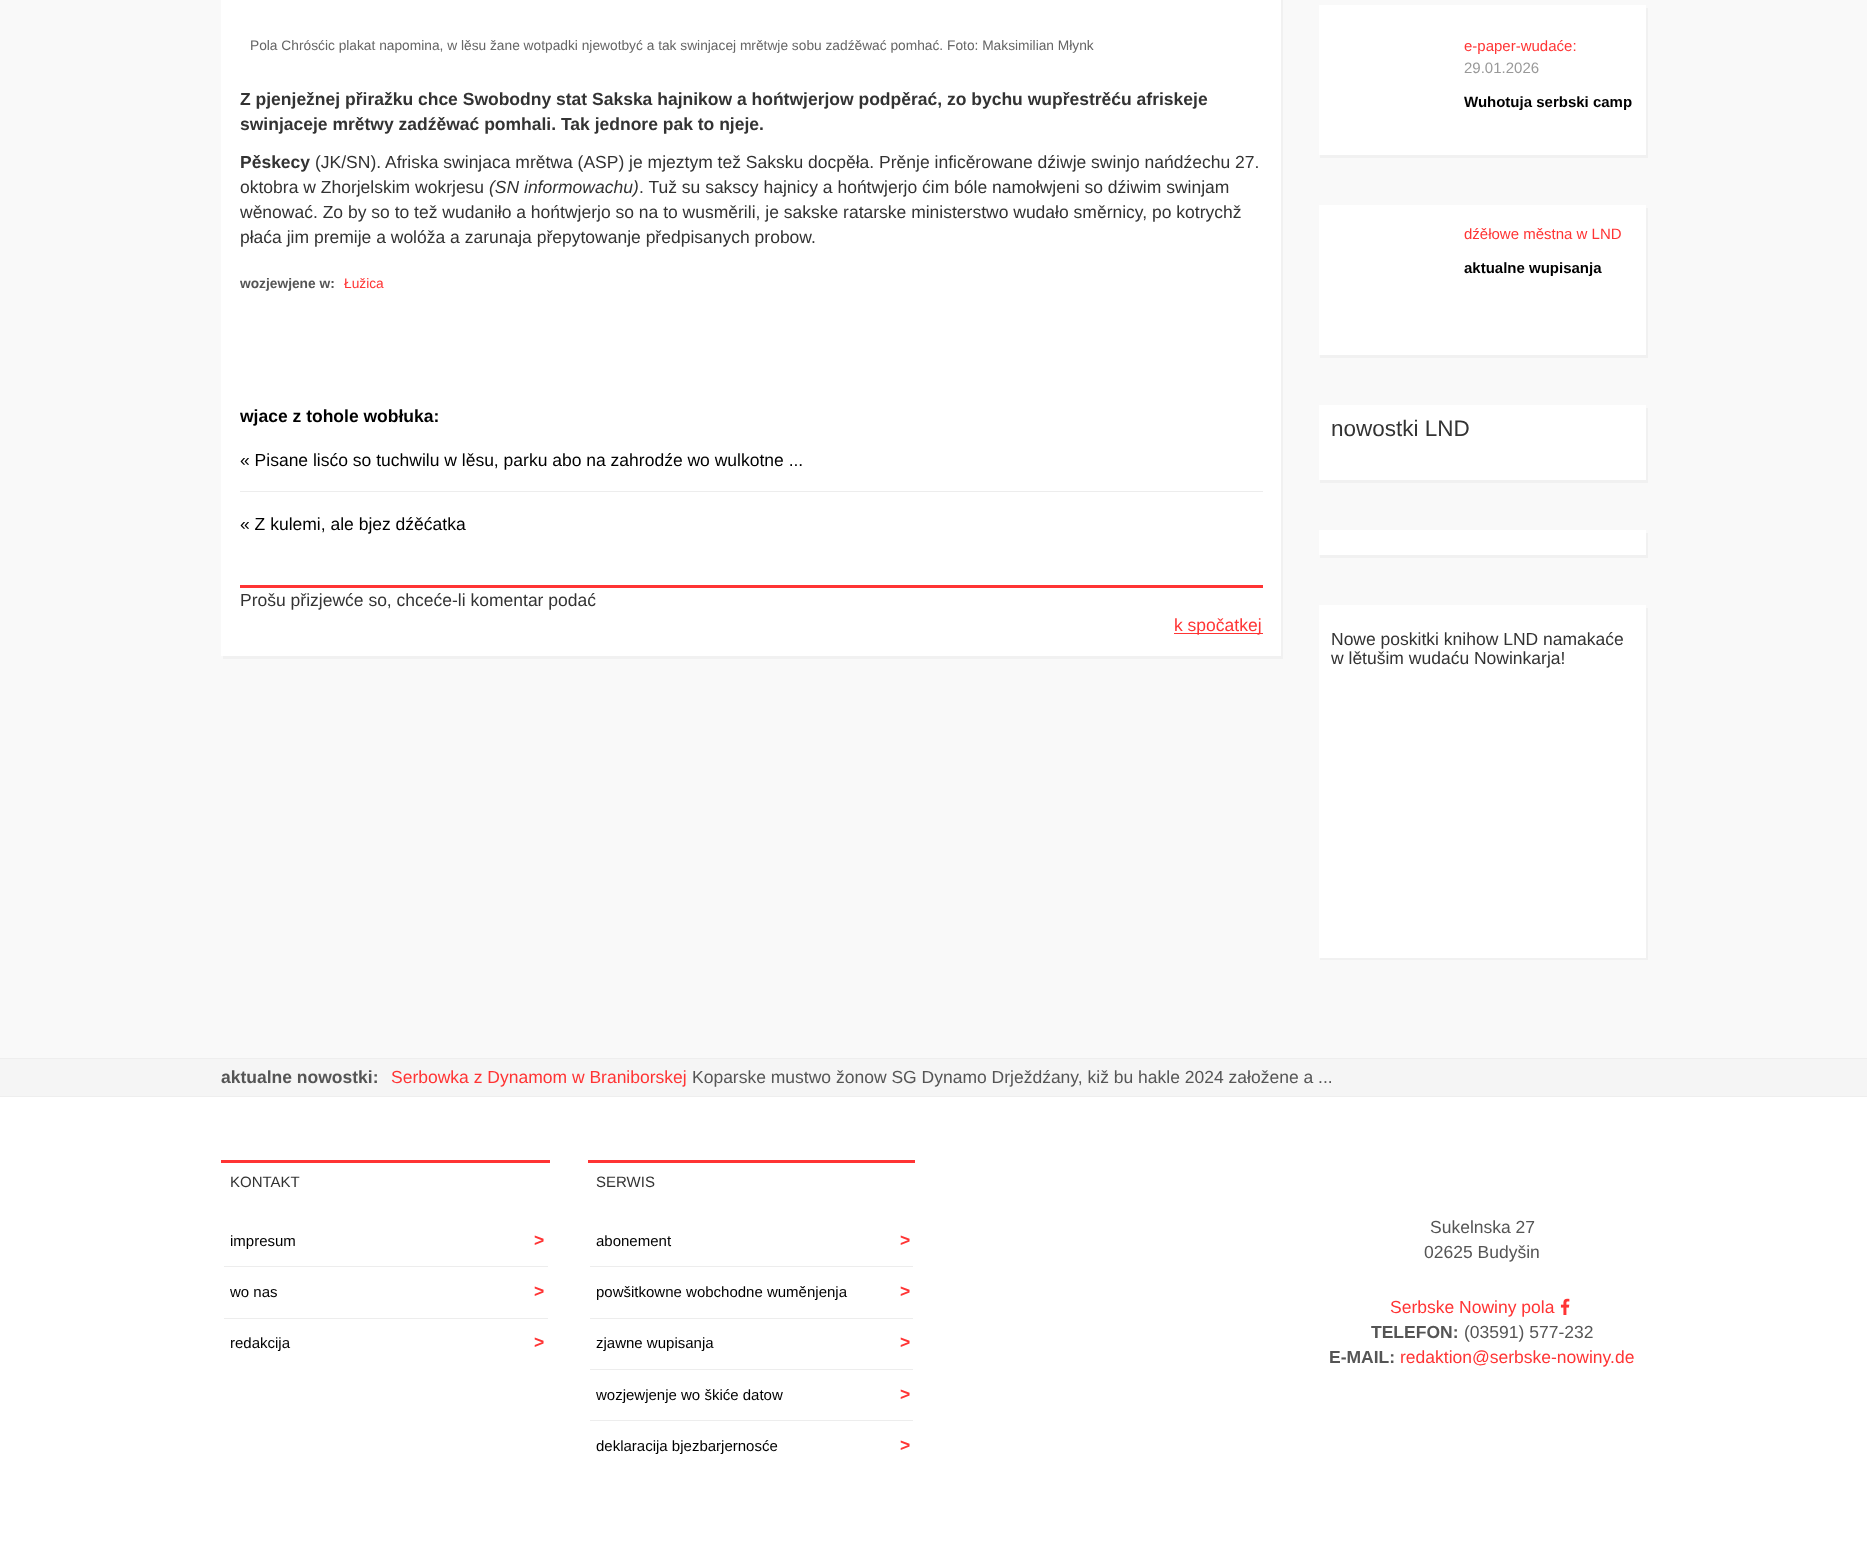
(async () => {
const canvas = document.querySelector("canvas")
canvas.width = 1867
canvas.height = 1560
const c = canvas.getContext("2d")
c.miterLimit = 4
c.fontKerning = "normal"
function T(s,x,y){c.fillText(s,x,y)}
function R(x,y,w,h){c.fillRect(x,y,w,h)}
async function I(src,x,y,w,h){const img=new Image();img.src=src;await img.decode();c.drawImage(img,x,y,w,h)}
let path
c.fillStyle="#f9f9f9"
R(0,0,1867,1560)
c.fillStyle="#f1f1f1"
path = new Path2D("M223 656v3h1060v-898h-2v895z")
c.fill(path)
c.fillStyle="#fff"
R(221,0,1060,656)
c.font="13.75px Liberation Sans"
c.fillStyle="#666"
T("Pola Chrósćic plakat napomina, w lěsu žane wotpadki njewotbyć a tak swinjacej mrětwje sobu zadźěwać pomhać. Foto: Maksimilian Młynk",250,50)
c.font="bold 17.5px Liberation Sans"
c.fillStyle="#333"
T("Z pjenježnej přiražku chce Swobodny stat Sakska hajnikow a hońtwjerjow podpěrać, zo bychu wupřestrěću afriskeje",240,105)
T("swinjaceje mrětwy zadźěwać pomhali. Tak jednore pak to njeje.",240,130)
T("Pěskecy",240,168)
c.font="17.5px Liberation Sans"
T("(JK/SN). Afriska swinjaca mrětwa (ASP) je mjeztym tež Saksku docpěła. Prěnje inficěrowane dźiwje swinjo nańdźechu 27.",315,168)
T("oktobra w Zhorjelskim wokrjesu",240,193)
c.font="italic 17.5px Liberation Sans"
T("(SN informowachu)",489,193)
c.font="17.5px Liberation Sans"
T(". Tuž su sakscy hajnicy a hońtwjerjo ćim bóle namołwjeni so dźiwim swinjam",639,193)
T("wěnować. Zo by so to tež wudaniło a hońtwjerjo so na to wusměrili, je sakske ratarske ministerstwo wudało směrnicy, po kotrychž",240,218)
T("płaća jim premije a wolóža a zarunaja přepytowanje předpisanych probow.",240,243)
c.font="bold 13.75px Liberation Sans"
c.fillStyle="#555"
T("wozjewjene w:",240,288)
c.font="13.75px Liberation Sans"
c.fillStyle="#ff3434"
T("Łužica",344,288)
c.font="bold 17.5px Liberation Sans"
c.fillStyle="#000"
T("wjace z tohole wobłuka:",240,422)
c.fillStyle="#ededed"
R(240,491,1023,1)
c.font="17.5px Liberation Sans"
c.fillStyle="#000"
T("« Pisane lisćo so tuchwilu w lěsu, parku abo na zahrodźe wo wulkotne ...",240,466)
T("« Z kulemi, ale bjez dźěćatka",240,530)
c.fillStyle="#ff3434"
R(240,585,1023,3)
c.fillStyle="#333"
T("Prošu přizjewće so, chceće-li komentar podać",240,606)
c.fillStyle="#ff3434"
R(1174,633,89,1)
T("k spočatkej",1174,631)
c.fillStyle="#f1f1f1"
path = new Path2D("M1320 155v3h328v-150h-2v147z")
c.fill(path)
c.fillStyle="#fff"
R(1319,5,327,150)
c.font="15px Liberation Sans"
c.fillStyle="#ff3434"
T("e-paper-wudaće:",1464,51)
c.fillStyle="#999"
T("29.01.2026",1464,73)
c.font="bold 15px Liberation Sans"
c.fillStyle="#000"
T("Wuhotuja serbski camp",1464,107)
c.fillStyle="#f1f1f1"
path = new Path2D("M1320 355v3h328v-150h-2v147z")
c.fill(path)
c.fillStyle="#fff"
R(1319,205,327,150)
c.font="15px Liberation Sans"
c.fillStyle="#ff3434"
T("dźěłowe městna w LND",1464,239)
c.font="bold 15px Liberation Sans"
c.fillStyle="#000"
T("aktualne wupisanja",1464,273)
c.fillStyle="#f1f1f1"
path = new Path2D("M1320 480v3h328v-75h-2v72z")
c.fill(path)
c.fillStyle="#fff"
R(1319,405,327,75)
c.font="22.5px Liberation Sans"
c.fillStyle="#333"
T("nowostki LND",1331,436)
c.fillStyle="#f1f1f1"
path = new Path2D("M1320 555v3h328v-25h-2v22z")
c.fill(path)
c.fillStyle="#fff"
R(1319,530,327,25)
c.fillStyle="#f1f1f1"
path = new Path2D("M1320 958v2h328v-352h-2v350z")
c.fill(path)
c.fillStyle="#fff"
R(1319,605,327,353)
c.font="17.5px Liberation Sans"
c.fillStyle="#333"
T("Nowe poskitki knihow LND namakaće",1331,645)
T("w lětušim wudaću Nowinkarja!",1331,664)
c.fillStyle="#f5f5f5"
R(0,1059,1867,37)
c.fillStyle="#eee"
R(0,1058,1867,1)
c.font="bold 17.5px Liberation Sans"
c.fillStyle="#555"
T("aktualne nowostki:",221,1083)
c.font="17.5px Liberation Sans"
c.fillStyle="#ff3434"
T("Serbowka z Dynamom w Braniborskej",391,1083)
c.fillStyle="#555"
T("Koparske mustwo žonow SG Dynamo Drježdźany, kiž bu hakle 2024 załožene a ...",692,1083)
c.fillStyle="#fff"
R(0,1097,1867,463)
c.fillStyle="#eee"
R(0,1096,1867,1)
c.fillStyle="#ff3434"
R(221,1160,329,3)
c.font="15px Liberation Sans"
c.fillStyle="#333"
T("KONTAKT",230,1187)
c.fillStyle="#ededed"
R(224,1266,324,1)
c.fillStyle="#000"
T("impresum",230,1246)
c.font="bold 17.5px Liberation Sans"
c.fillStyle="#ff3434"
T(">",534,1246)
c.fillStyle="#ededed"
R(224,1318,324,1)
c.font="15px Liberation Sans"
c.fillStyle="#000"
T("wo nas",230,1297)
c.font="bold 17.5px Liberation Sans"
c.fillStyle="#ff3434"
T(">",534,1297)
c.font="15px Liberation Sans"
c.fillStyle="#000"
T("redakcija",230,1348)
c.font="bold 17.5px Liberation Sans"
c.fillStyle="#ff3434"
T(">",534,1348)
R(588,1160,327,3)
c.font="15px Liberation Sans"
c.fillStyle="#333"
T("SERWIS",596,1187)
c.fillStyle="#ededed"
R(590,1266,323,1)
c.fillStyle="#000"
T("abonement",596,1246)
c.font="bold 17.5px Liberation Sans"
c.fillStyle="#ff3434"
T(">",900,1246)
c.fillStyle="#ededed"
R(590,1318,323,1)
c.font="15px Liberation Sans"
c.fillStyle="#000"
T("powšitkowne wobchodne wuměnjenja",596,1297)
c.font="bold 17.5px Liberation Sans"
c.fillStyle="#ff3434"
T(">",900,1297)
c.fillStyle="#ededed"
R(590,1369,323,1)
c.font="15px Liberation Sans"
c.fillStyle="#000"
T("zjawne wupisanja",596,1348)
c.font="bold 17.5px Liberation Sans"
c.fillStyle="#ff3434"
T(">",900,1348)
c.fillStyle="#ededed"
R(590,1420,323,1)
c.font="15px Liberation Sans"
c.fillStyle="#000"
T("wozjewjenje wo škiće datow",596,1400)
c.font="bold 17.5px Liberation Sans"
c.fillStyle="#ff3434"
T(">",900,1400)
c.font="15px Liberation Sans"
c.fillStyle="#000"
T("deklaracija bjezbarjernosće",596,1451)
c.font="bold 17.5px Liberation Sans"
c.fillStyle="#ff3434"
T(">",900,1451)
c.font="17.5px Liberation Sans"
c.fillStyle="#555"
T("Sukelnska 27",1430,1233)
T("02625 Budyšin",1424,1258)
c.fillStyle="#ff3434"
T("Serbske Nowiny pola",1390,1313)
await I("1.png",1560,1298,10,17)
c.font="bold 17.5px Liberation Sans"
c.fillStyle="#555"
T("TELEFON:",1371,1338)
c.font="17.5px Liberation Sans"
T("(03591) 577-232",1464,1338)
c.font="bold 17.5px Liberation Sans"
T("E-MAIL:",1329,1363)
c.font="17.5px Liberation Sans"
c.fillStyle="#ff3434"
T("redaktion@serbske-nowiny.de",1400,1363)
})()
